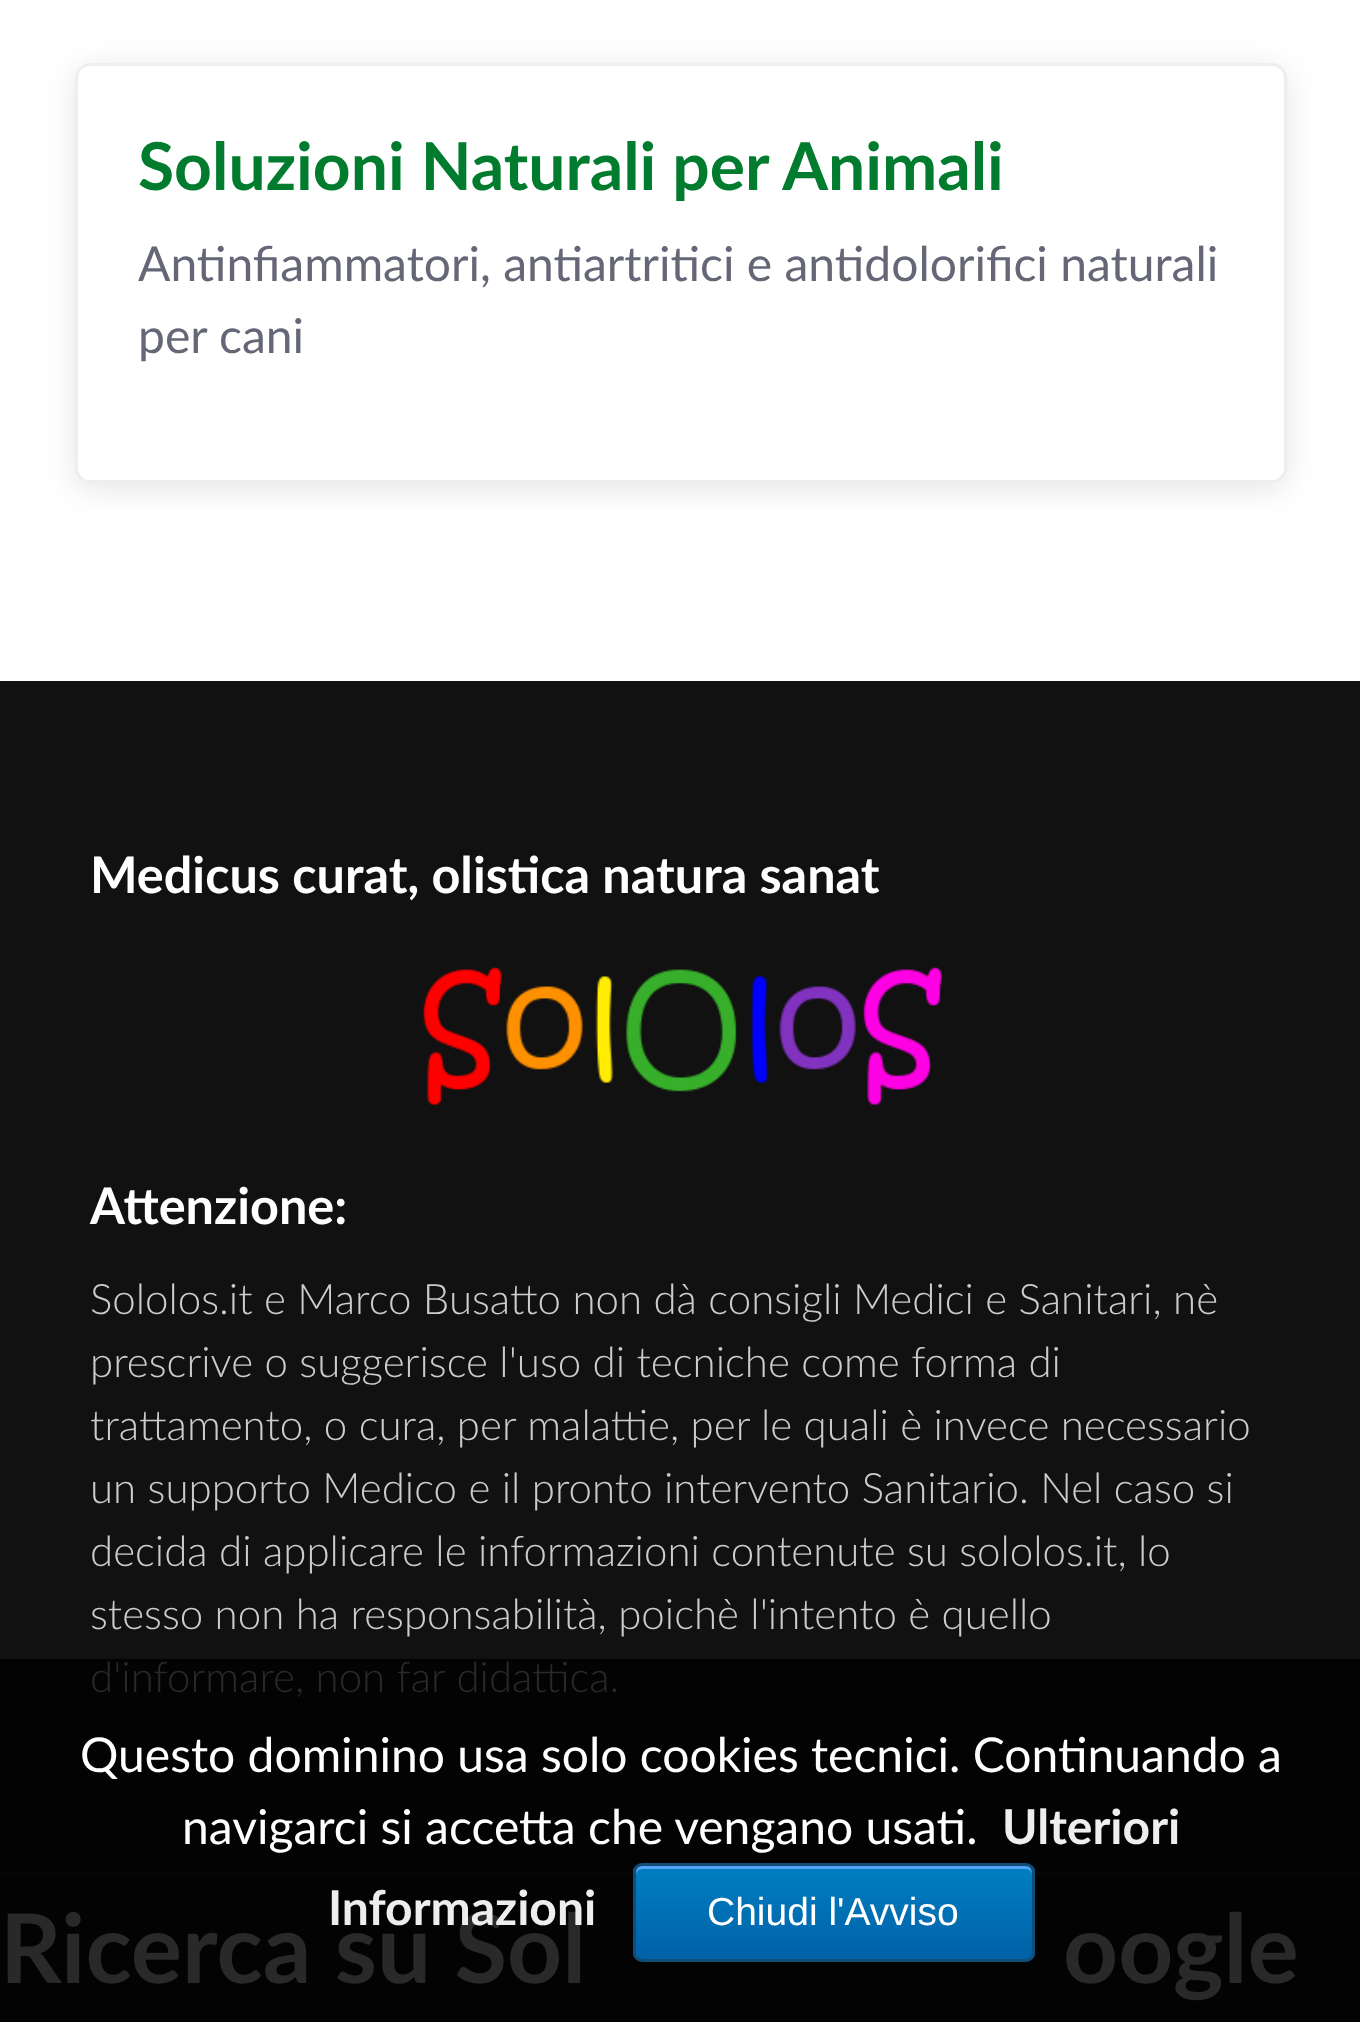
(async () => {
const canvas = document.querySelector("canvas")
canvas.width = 1360
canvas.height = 2022
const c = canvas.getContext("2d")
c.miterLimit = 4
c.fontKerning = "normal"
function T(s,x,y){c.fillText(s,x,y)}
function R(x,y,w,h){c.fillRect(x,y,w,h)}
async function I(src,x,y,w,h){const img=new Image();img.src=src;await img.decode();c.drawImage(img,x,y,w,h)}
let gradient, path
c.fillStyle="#fff"
R(0,0,1360,2022)
c.save()
path = new Path2D("M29 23h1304v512h-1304zm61 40h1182c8.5 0 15 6.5 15 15v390c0 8.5-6.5 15-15 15h-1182c-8.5 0-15-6.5-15-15v-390c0-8.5 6.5-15 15-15z")
c.clip(path,"evenodd")
c.fillStyle="#0000001a"
c.filter="blur(15px)"
c.beginPath()
c.roundRect(75,69,1212,420,15)
c.fill()
c.filter="none"
c.restore()
c.beginPath()
c.roundRect(76.5,64.5,1209,417,13.5)
c.strokeStyle="#eee"
c.lineWidth=3
c.stroke()
c.font="bold 66px Lato"
c.fillStyle="#017c2e"
T("Soluzioni Naturali per Animali",138,190)
c.font="48px Lato"
c.fillStyle="#656777"
T("Antinfiammatori, antiartritici e antidolorifici naturali",138,281)
T("per cani",138,353)
c.fillStyle="#111"
R(0,681,1360,978)
c.fillStyle="#030303"
R(0,1659,1360,213)
c.font="bold 50.4px Lato"
c.fillStyle="#fff"
T("Medicus curat, olistica natura sanat",90,893)
await I("1.png",423,967,519,138)
T("Attenzione:",90,1224)
c.font="300 42px Lato"
c.fillStyle="#ccc"
T("Sololos.it e Marco Busatto non dà consigli Medici e Sanitari, nè",90,1314)
T("prescrive o suggerisce l'uso di tecniche come forma di",90,1377)
T("trattamento, o cura, per malattie, per le quali è invece necessario",90,1440)
T("un supporto Medico e il pronto intervento Sanitario. Nel caso si",90,1503)
T("decida di applicare le informazioni contenute su sololos.it, lo",90,1566)
T("stesso non ha responsabilità, poichè l'intento è quello",90,1629)
c.fillStyle="#292929"
T("d'informare, non far didattica.",90,1692)
c.font="48px Lato"
c.fillStyle="#fff"
T("Questo dominino usa solo cookies tecnici. Continuando a",80,1772)
T("navigarci si accetta che vengano usati.",182,1844)
c.font="bold 48px Lato"
c.fillStyle="#eee"
T("Ulteriori",1002,1844)
c.fillStyle="#030303"
R(0,1875,1360,147)
c.font="bold 96px Lato"
c.fillStyle="#292929"
T("Ricerca su Sol",0,1983)
c.font="bold 48px Lato"
c.fillStyle="#eee"
T("Informazioni",328,1925)
c.fillStyle="#070707"
R(0,1872,1360,3)
c.save()
c.beginPath()
c.roundRect(633,1863,402,99,9)
c.clip()
gradient = c.createLinearGradient(834,1866,834,1959)
gradient.addColorStop(.05,"#007dc1")
gradient.addColorStop(1,"#0061a7")
c.fillStyle = gradient
R(633,1866,402,93)
c.restore()
c.fillStyle="#54a3f7"
path = new Path2D("M642 1869h384c3 0 6 3 6 6c0-4-1-9-6-9h-385c-5 1-5 5-5 9c0-3 3-6 6-6z")
c.fill(path)
c.beginPath()
c.roundRect(634.5,1864.5,399,96,7.5)
c.strokeStyle="#124d77"
c.stroke()
c.font="39px Liberation Sans"
c.fillStyle="#fff"
T("Chiudi l'Avviso",707,1925)
c.font="bold 96px Lato"
c.fillStyle="#292929"
T("oogle",1063,1983)
})()
